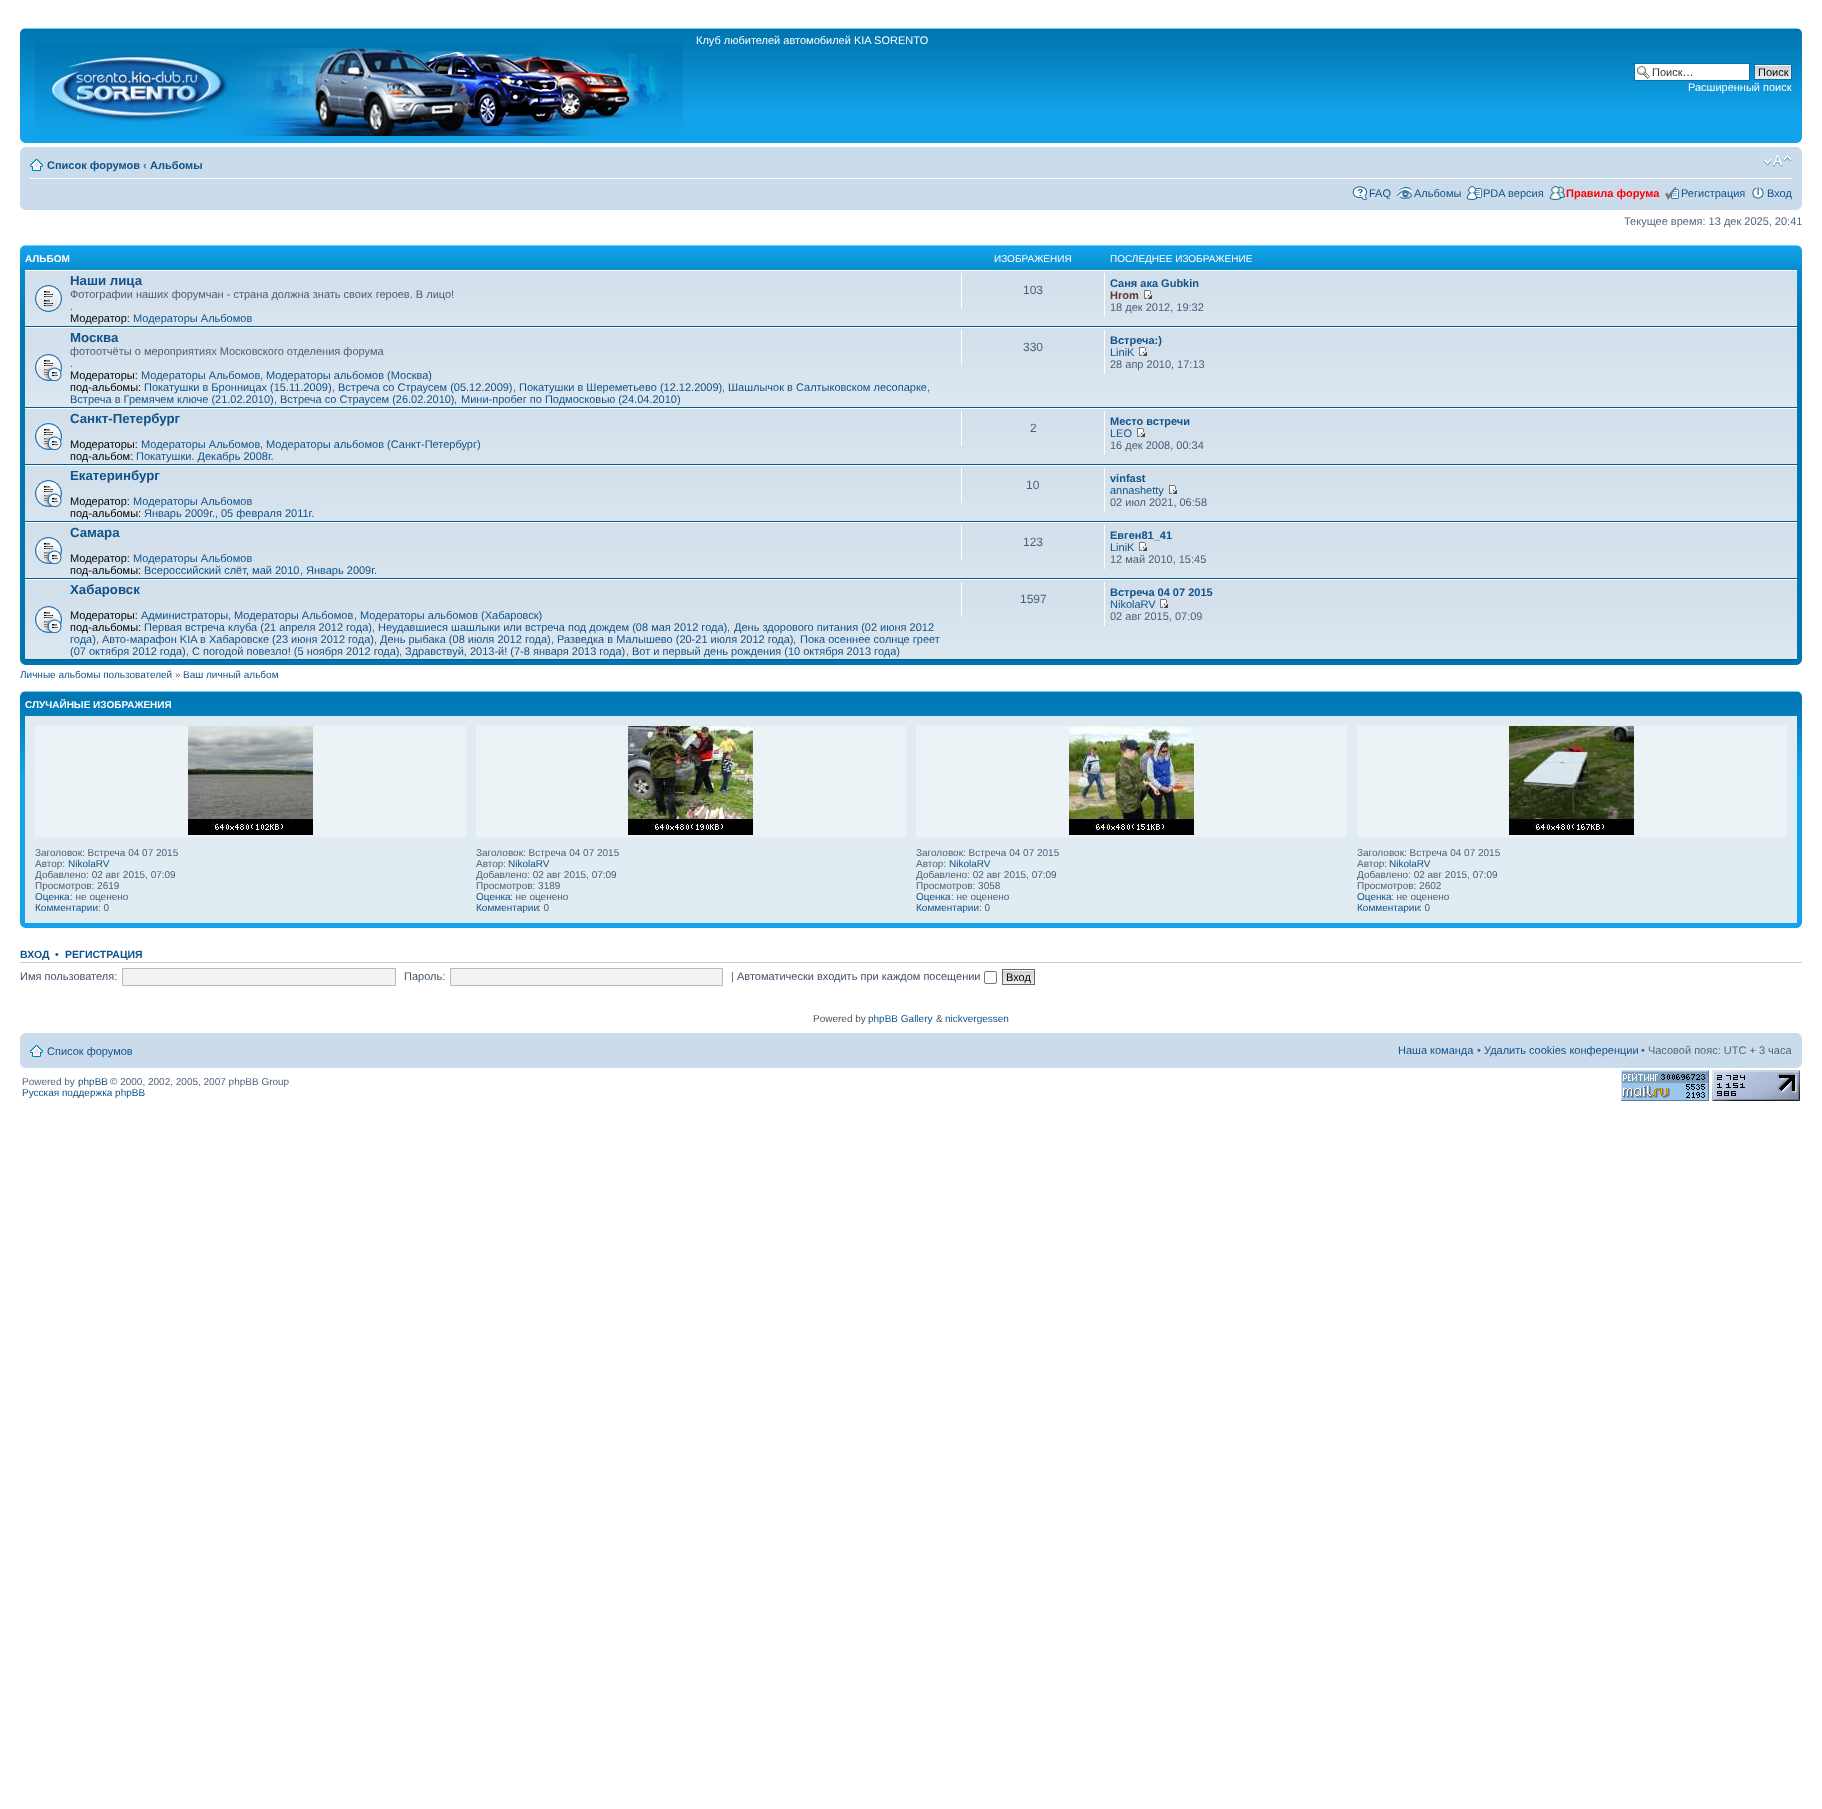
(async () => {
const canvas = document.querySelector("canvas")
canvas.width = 1822
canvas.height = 1809
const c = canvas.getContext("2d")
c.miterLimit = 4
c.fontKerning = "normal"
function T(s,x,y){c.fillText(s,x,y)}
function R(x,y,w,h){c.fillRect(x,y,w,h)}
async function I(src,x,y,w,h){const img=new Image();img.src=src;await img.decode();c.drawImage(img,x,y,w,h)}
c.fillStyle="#fff"
R(0,0,1822,1809)
c.fillStyle="#12a3eb"
R(20,110,1782,33)
await I("1.png",20,28,1782,82)
await I("2.png",20,28,5,5)
await I("3.png",1797,28,5,5)
c.font="11px Liberation Sans"
c.fillStyle="#fff"
T("Клуб любителей автомобилей KIA SORENTO",696,44)
await I("4.png",35,43,648,93)
R(1635,64,114,16)
await I("5.png",1637,66,13,13)
c.strokeStyle="#0075b0"
c.strokeRect(1634.5,63.5,115,17)
c.fillStyle="#333"
T("Поиск…",1652,76)
await I("6.png",1755,65,36,14)
c.strokeRect(1754.5,64.5,37,15)
c.fillStyle="#000"
T("Поиск",1758,76)
c.fillStyle="#fff"
T("Расширенный поиск",1688,91)
await I("7.png",20,138,5,5)
await I("8.png",1797,138,5,5)
c.fillStyle="#cadceb"
R(20,147,1782,63)
await I("9.png",20,147,5,5)
await I("10.png",1797,147,5,5)
c.fillStyle="#fff"
R(30,178,1762,1)
await I("11.png",30,159,13,12)
c.font="bold 11px Liberation Sans"
c.fillStyle="#105289"
T("Список форумов",47,169)
c.fillStyle="#536482"
T("‹",143,169)
c.fillStyle="#105289"
T("Альбомы",150,169)
await I("12.png",1763,155,29,12)
await I("13.png",1352,186,16,14)
c.font="11px Liberation Sans"
T("FAQ",1369,197)
await I("14.png",1397,187,16,13)
T("Альбомы",1414,197)
await I("15.png",1466,186,16,14)
T("PDA версия",1483,197)
await I("16.png",1549,186,17,14)
c.font="bold 11px Liberation Sans"
c.fillStyle="#f00"
T("Правила форума",1566,197)
await I("17.png",1665,187,14,13)
c.font="11px Liberation Sans"
c.fillStyle="#105289"
T("Регистрация",1681,197)
await I("18.png",1752,187,12,12)
T("Вход",1767,197)
await I("19.png",20,205,5,5)
await I("20.png",1797,205,5,5)
c.fillStyle="#536482"
T("Текущее время: 13 дек 2025, 20:41",1624,225)
c.fillStyle="#0076b1"
R(20,322,1782,343)
await I("21.png",20,245,1782,77)
await I("22.png",20,245,5,5)
await I("23.png",1797,245,5,5)
c.font="bold 10px Liberation Sans"
c.fillStyle="#fff"
T("АЛЬБОМ",25,262)
c.font="10px Liberation Sans"
T("ИЗОБРАЖЕНИЯ",994,262)
T("ПОСЛЕДНЕЕ ИЗОБРАЖЕНИЕ",1110,262)
await I("24.png",25,271,1772,55)
R(25,270,1772,1)
c.fillStyle="#00608f"
R(25,326,1772,1)
await I("25.png",35,285,27,27)
c.font="bold 13.25px Liberation Sans"
c.fillStyle="#105289"
T("Наши лица",70,285)
c.font="11px Liberation Sans"
c.fillStyle="#4c5d77"
T("Фотографии наших форумчан - страна должна знать своих героев. В лицо!",70,298)
T(".",70,310)
c.fillStyle="#000"
T("Модератор:",70,322)
c.fillStyle="#105289"
T("Модераторы Альбомов",133,322)
c.fillStyle="#fff"
R(961,273,1,35)
c.font="12px Liberation Sans"
c.fillStyle="#4c5d77"
T("103",1023,294)
c.fillStyle="#fff"
R(1104,273,1,44)
c.font="bold 11px Liberation Sans"
c.fillStyle="#105289"
T("Саня ака Gubkin",1110,287)
c.fillStyle="#633"
T("Hrom",1110,299)
await I("26.png",1144,290,8,9)
c.font="11px Liberation Sans"
c.fillStyle="#4c5d77"
T("18 дек 2012, 19:32",1110,311)
await I("27.png",25,328,1772,79)
c.fillStyle="#fff"
R(25,327,1772,1)
c.fillStyle="#00608f"
R(25,407,1772,1)
await I("28.png",35,354,27,27)
c.font="bold 13.25px Liberation Sans"
c.fillStyle="#105289"
T("Москва",70,342)
c.font="11px Liberation Sans"
c.fillStyle="#4c5d77"
T("фотоотчёты о мероприятиях Московского отделения форума",70,355)
T(".",70,367)
c.fillStyle="#000"
T("Модераторы:",70,379)
c.fillStyle="#105289"
T("Модераторы Альбомов",141,379)
c.fillStyle="#4c5d77"
T(",",260,379)
c.fillStyle="#105289"
T("Модераторы альбомов (Москва)",266,379)
c.fillStyle="#000"
T("под-альбомы:",70,391)
c.fillStyle="#105289"
T("Покатушки в Бронницах (15.11.2009)",144,391)
c.fillStyle="#4c5d77"
T(",",332,391)
c.fillStyle="#105289"
T("Встреча со Страусем (05.12.2009)",338,391)
c.fillStyle="#4c5d77"
T(",",513,391)
c.fillStyle="#105289"
T("Покатушки в Шереметьево (12.12.2009)",519,391)
c.fillStyle="#4c5d77"
T(",",722,391)
c.fillStyle="#105289"
T("Шашлычок в Салтыковском лесопарке",728,391)
c.fillStyle="#4c5d77"
T(",",927,391)
c.fillStyle="#105289"
T("Встреча в Гремячем ключе (21.02.2010)",70,403)
c.fillStyle="#4c5d77"
T(",",274,403)
c.fillStyle="#105289"
T("Встреча со Страусем (26.02.2010)",280,403)
c.fillStyle="#4c5d77"
T(",",454,403)
c.fillStyle="#105289"
T("Мини-пробег по Подмосковью (24.04.2010)",461,403)
c.fillStyle="#fff"
R(961,330,1,35)
c.font="12px Liberation Sans"
c.fillStyle="#4c5d77"
T("330",1023,351)
c.fillStyle="#fff"
R(1104,330,1,44)
c.font="bold 11px Liberation Sans"
c.fillStyle="#105289"
T("Встреча:)",1110,344)
c.font="11px Liberation Sans"
T("LiniK",1110,356)
await I("26.png",1139,347,8,9)
c.fillStyle="#4c5d77"
T("28 апр 2010, 17:13",1110,368)
await I("24.png",25,409,1772,55)
c.fillStyle="#fff"
R(25,408,1772,1)
c.fillStyle="#00608f"
R(25,464,1772,1)
await I("29.png",35,423,27,27)
c.font="bold 13.25px Liberation Sans"
c.fillStyle="#105289"
T("Санкт-Петербург",70,423)
c.font="11px Liberation Sans"
c.fillStyle="#000"
T("Модераторы:",70,448)
c.fillStyle="#105289"
T("Модераторы Альбомов",141,448)
c.fillStyle="#4c5d77"
T(",",260,448)
c.fillStyle="#105289"
T("Модераторы альбомов (Санкт-Петербург)",266,448)
c.fillStyle="#000"
T("под-альбом:",70,460)
c.fillStyle="#105289"
T("Покатушки. Декабрь 2008г.",136,460)
c.fillStyle="#fff"
R(961,411,1,35)
c.font="12px Liberation Sans"
c.fillStyle="#4c5d77"
T("2",1030,432)
c.fillStyle="#fff"
R(1104,411,1,44)
c.font="bold 11px Liberation Sans"
c.fillStyle="#105289"
T("Место встречи",1110,425)
c.font="11px Liberation Sans"
T("LEO",1110,437)
await I("26.png",1137,428,8,9)
c.fillStyle="#4c5d77"
T("16 дек 2008, 00:34",1110,449)
await I("24.png",25,466,1772,55)
c.fillStyle="#fff"
R(25,465,1772,1)
c.fillStyle="#00608f"
R(25,521,1772,1)
await I("29.png",35,480,27,27)
c.font="bold 13.25px Liberation Sans"
c.fillStyle="#105289"
T("Екатеринбург",70,480)
c.font="11px Liberation Sans"
c.fillStyle="#000"
T("Модератор:",70,505)
c.fillStyle="#105289"
T("Модераторы Альбомов",133,505)
c.fillStyle="#000"
T("под-альбомы:",70,517)
c.fillStyle="#105289"
T("Январь 2009г.",144,517)
c.fillStyle="#4c5d77"
T(",",215,517)
c.fillStyle="#105289"
T("05 февраля 2011г.",221,517)
c.fillStyle="#fff"
R(961,468,1,35)
c.font="12px Liberation Sans"
c.fillStyle="#4c5d77"
T("10",1026,489)
c.fillStyle="#fff"
R(1104,468,1,44)
c.font="bold 11px Liberation Sans"
c.fillStyle="#105289"
T("vinfast",1110,482)
c.font="11px Liberation Sans"
T("annashetty",1110,494)
await I("26.png",1169,485,8,9)
c.fillStyle="#4c5d77"
T("02 июл 2021, 06:58",1110,506)
await I("24.png",25,523,1772,55)
c.fillStyle="#fff"
R(25,522,1772,1)
c.fillStyle="#00608f"
R(25,578,1772,1)
await I("29.png",35,537,27,27)
c.font="bold 13.25px Liberation Sans"
c.fillStyle="#105289"
T("Самара",70,537)
c.font="11px Liberation Sans"
c.fillStyle="#000"
T("Модератор:",70,562)
c.fillStyle="#105289"
T("Модераторы Альбомов",133,562)
c.fillStyle="#000"
T("под-альбомы:",70,574)
c.fillStyle="#105289"
T("Всероссийский слёт, май 2010",144,574)
c.fillStyle="#4c5d77"
T(",",300,574)
c.fillStyle="#105289"
T("Январь 2009г.",306,574)
c.fillStyle="#fff"
R(961,525,1,35)
c.font="12px Liberation Sans"
c.fillStyle="#4c5d77"
T("123",1023,546)
c.fillStyle="#fff"
R(1104,525,1,44)
c.font="bold 11px Liberation Sans"
c.fillStyle="#105289"
T("Евген81_41",1110,539)
c.font="11px Liberation Sans"
T("LiniK",1110,551)
await I("26.png",1139,542,8,9)
c.fillStyle="#4c5d77"
T("12 май 2010, 15:45",1110,563)
await I("27.png",25,580,1772,79)
c.fillStyle="#fff"
R(25,579,1772,1)
c.fillStyle="#00608f"
R(25,659,1772,1)
await I("28.png",35,606,27,27)
c.font="bold 13.25px Liberation Sans"
c.fillStyle="#105289"
T("Хабаровск",70,594)
c.font="11px Liberation Sans"
c.fillStyle="#000"
T("Модераторы:",70,619)
c.fillStyle="#105289"
T("Администраторы",141,619)
c.fillStyle="#4c5d77"
T(",",228,619)
c.fillStyle="#105289"
T("Модераторы Альбомов",234,619)
c.fillStyle="#4c5d77"
T(",",354,619)
c.fillStyle="#105289"
T("Модераторы альбомов (Хабаровск)",360,619)
c.fillStyle="#000"
T("под-альбомы:",70,631)
c.fillStyle="#105289"
T("Первая встреча клуба (21 апреля 2012 года)",144,631)
c.fillStyle="#4c5d77"
T(",",372,631)
c.fillStyle="#105289"
T("Неудавшиеся шашлыки или встреча под дождем (08 мая 2012 года)",378,631)
c.fillStyle="#4c5d77"
T(",",727,631)
c.fillStyle="#105289"
T("День здорового питания (02 июня 2012",734,631)
T("года)",70,643)
c.fillStyle="#4c5d77"
T(",",96,643)
c.fillStyle="#105289"
T("Авто-марафон KIA в Хабаровске (23 июня 2012 года)",102,643)
c.fillStyle="#4c5d77"
T(",",374,643)
c.fillStyle="#105289"
T("День рыбака (08 июля 2012 года)",380,643)
c.fillStyle="#4c5d77"
T(",",551,643)
c.fillStyle="#105289"
T("Разведка в Малышево (20-21 июля 2012 года)",557,643)
c.fillStyle="#4c5d77"
T(",",793,643)
c.fillStyle="#105289"
T("Пока осеннее солнце греет",800,643)
T("(07 октября 2012 года)",70,655)
c.fillStyle="#4c5d77"
T(",",186,655)
c.fillStyle="#105289"
T("С погодой повезло! (5 ноября 2012 года)",192,655)
c.fillStyle="#4c5d77"
T(",",399,655)
c.fillStyle="#105289"
T("Здравствуй, 2013-й! (7-8 января 2013 года)",405,655)
c.fillStyle="#4c5d77"
T(",",626,655)
c.fillStyle="#105289"
T("Вот и первый день рождения (10 октября 2013 года)",632,655)
c.fillStyle="#fff"
R(961,582,1,35)
c.font="12px Liberation Sans"
c.fillStyle="#4c5d77"
T("1597",1020,603)
c.fillStyle="#fff"
R(1104,582,1,44)
c.font="bold 11px Liberation Sans"
c.fillStyle="#105289"
T("Встреча 04 07 2015",1110,596)
c.font="11px Liberation Sans"
T("NikolaRV",1110,608)
await I("26.png",1160,599,8,9)
c.fillStyle="#4c5d77"
T("02 авг 2015, 07:09",1110,620)
await I("30.png",20,660,5,5)
await I("31.png",1797,660,5,5)
c.font="10px Liberation Sans"
c.fillStyle="#105289"
T("Личные альбомы пользователей",20,678)
c.fillStyle="#536482"
T("»",175,678)
c.fillStyle="#105289"
T("Ваш личный альбом",183,678)
c.fillStyle="#12a3eb"
R(20,773,1782,155)
await I("1.png",20,691,1782,82)
await I("2.png",20,691,5,5)
await I("3.png",1797,691,5,5)
c.font="bold 10px Liberation Sans"
c.fillStyle="#fff"
T("СЛУЧАЙНЫЕ ИЗОБРАЖЕНИЯ",25,708)
c.fillStyle="#e1ebf2"
R(25,716,1772,207)
c.fillStyle="#ecf3f7"
R(35,726,431,111)
await I("32.png",188,726,125,109)
R(476,726,430,111)
await I("33.png",628,726,125,109)
R(916,726,431,111)
await I("34.png",1069,726,125,109)
R(1357,726,430,111)
await I("35.png",1509,726,125,109)
c.font="10px Liberation Sans"
c.fillStyle="#4c5d77"
T("Заголовок: Встреча 04 07 2015",35,856)
T("Автор:",35,867)
c.fillStyle="#105289"
T("NikolaRV",68,867)
c.fillStyle="#4c5d77"
T("Добавлено: 02 авг 2015, 07:09",35,878)
T("Просмотров: 2619",35,889)
c.fillStyle="#105289"
T("Оценка",35,900)
c.fillStyle="#4c5d77"
T(": не оценено",70,900)
c.fillStyle="#105289"
T("Комментарии",35,911)
c.fillStyle="#4c5d77"
T(": 0",98,911)
T("Заголовок: Встреча 04 07 2015",476,856)
T("Автор:",476,867)
c.fillStyle="#105289"
T("NikolaRV",508,867)
c.fillStyle="#4c5d77"
T("Добавлено: 02 авг 2015, 07:09",476,878)
T("Просмотров: 3189",476,889)
c.fillStyle="#105289"
T("Оценка",476,900)
c.fillStyle="#4c5d77"
T(": не оценено",510,900)
c.fillStyle="#105289"
T("Комментарии",476,911)
c.fillStyle="#4c5d77"
T(": 0",538,911)
T("Заголовок: Встреча 04 07 2015",916,856)
T("Автор:",916,867)
c.fillStyle="#105289"
T("NikolaRV",949,867)
c.fillStyle="#4c5d77"
T("Добавлено: 02 авг 2015, 07:09",916,878)
T("Просмотров: 3058",916,889)
c.fillStyle="#105289"
T("Оценка",916,900)
c.fillStyle="#4c5d77"
T(": не оценено",951,900)
c.fillStyle="#105289"
T("Комментарии",916,911)
c.fillStyle="#4c5d77"
T(": 0",979,911)
T("Заголовок: Встреча 04 07 2015",1357,856)
T("Автор:",1357,867)
c.fillStyle="#105289"
T("NikolaRV",1389,867)
c.fillStyle="#4c5d77"
T("Добавлено: 02 авг 2015, 07:09",1357,878)
T("Просмотров: 2602",1357,889)
c.fillStyle="#105289"
T("Оценка",1357,900)
c.fillStyle="#4c5d77"
T(": не оценено",1391,900)
c.fillStyle="#105289"
T("Комментарии",1357,911)
c.fillStyle="#4c5d77"
T(": 0",1419,911)
await I("7.png",20,923,5,5)
await I("8.png",1797,923,5,5)
c.fillStyle="#ccc"
R(20,962,1782,1)
c.font="bold 10.5px Liberation Sans"
c.fillStyle="#105289"
T("ВХОД",20,958)
c.fillStyle="#115098"
T("•",55,958)
c.fillStyle="#105289"
T("РЕГИСТРАЦИЯ",65,958)
c.font="11px Liberation Sans"
c.fillStyle="#425067"
T("Имя пользователя:",20,980)
c.fillStyle="#f2f3f3"
c.beginPath()
c.rect(122.5,968.5,273,17)
c.fill()
c.strokeStyle="#b4bac0"
c.stroke()
c.fillStyle="#425067"
T("Пароль:",404,980)
c.fillStyle="#f2f3f3"
c.beginPath()
c.rect(450.5,968.5,272,17)
c.fill()
c.stroke()
c.fillStyle="#536482"
T("|",731,980)
c.fillStyle="#425067"
T("Автоматически входить при каждом посещении",737,980)
c.beginPath()
c.roundRect(984.5,971.5,12,12,1.5)
c.strokeStyle="#767676"
c.stroke()
await I("36.png",1003,970,31,14)
c.strokeStyle="#666"
c.strokeRect(1002.5,969.5,32,15)
c.fillStyle="#000"
T("Вход",1006,981)
c.font="10px Liberation Sans"
c.fillStyle="#555"
T("Powered by",813,1022)
c.fillStyle="#105289"
T("phpBB Gallery",868,1022)
c.fillStyle="#555"
T("&",936,1022)
c.fillStyle="#105289"
T("nickvergessen",945,1022)
c.fillStyle="#cadceb"
R(20,1033,1782,35)
await I("9.png",20,1033,5,5)
await I("10.png",1797,1033,5,5)
await I("11.png",30,1045,13,12)
c.font="11px Liberation Sans"
c.fillStyle="#105289"
T("Список форумов",47,1055)
T("Наша команда",1398,1054)
c.fillStyle="#536482"
T("•",1477,1054)
c.fillStyle="#105289"
T("Удалить cookies конференции",1484,1054)
c.fillStyle="#536482"
T("• Часовой пояс: UTC + 3 часа",1641,1054)
await I("19.png",20,1063,5,5)
await I("20.png",1797,1063,5,5)
c.font="10px Liberation Sans"
T("Powered by",22,1085)
c.fillStyle="#105289"
T("phpBB",78,1085)
c.fillStyle="#536482"
T("© 2000, 2002, 2005, 2007 phpBB Group",110,1085)
c.fillStyle="#105289"
T("Русская поддержка phpBB",22,1096)
await I("37.png",1621,1070,88,31)
await I("38.png",1712,1070,88,31)
})()
